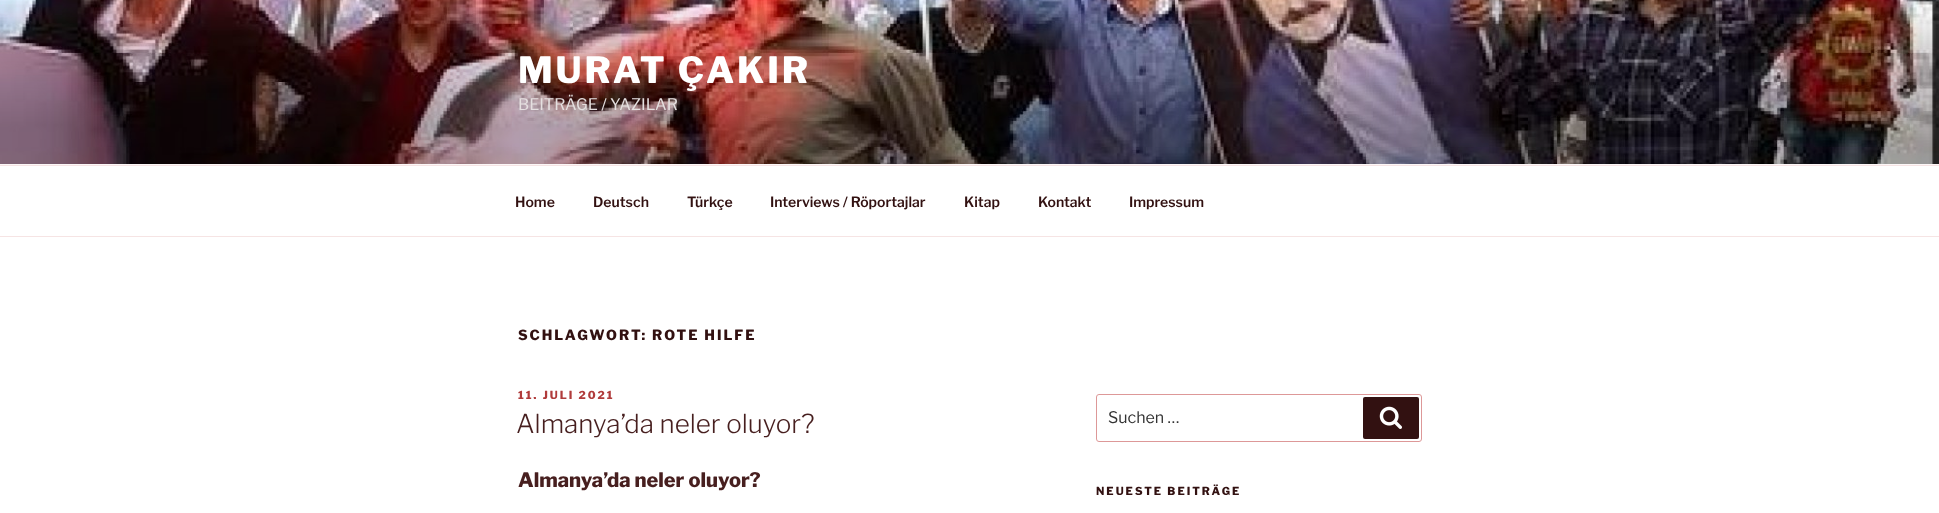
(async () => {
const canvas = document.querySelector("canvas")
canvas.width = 1939
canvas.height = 513
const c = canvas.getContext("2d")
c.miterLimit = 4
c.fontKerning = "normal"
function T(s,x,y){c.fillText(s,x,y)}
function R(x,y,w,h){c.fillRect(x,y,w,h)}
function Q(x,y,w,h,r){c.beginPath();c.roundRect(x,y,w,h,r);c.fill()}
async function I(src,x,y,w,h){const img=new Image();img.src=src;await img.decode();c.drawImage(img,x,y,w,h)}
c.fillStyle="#fff"
R(0,0,1939,513)
c.fillStyle="#fcf7f7"
R(0,164,1939,1)
await I("1.png",0,0,1939,164)
c.letterSpacing="2.9px"
c.font="800 36px Libre Franklin"
c.fillStyle="#fff"
T("MURAT ÇAKIR",518,83)
c.letterSpacing="0px"
c.font="16px Libre Franklin"
c.fillStyle="#e5e0e0"
T("BEITRÄGE / YAZILAR",518,110)
c.fillStyle="#f6e4e4"
R(0,165,1939,1)
R(0,236,1939,1)
c.font="600 14px Libre Franklin"
c.fillStyle="#321111"
T("Home",515,207)
T("Deutsch",593,207)
T("Türkçe",687,207)
T("Interviews / Röportajlar",770,207)
T("Kitap",964,207)
T("Kontakt",1038,207)
T("Impressum",1129,207)
c.letterSpacing="2px"
c.font="800 14px Libre Franklin"
T("SCHLAGWORT: ROTE HILFE",518,340)
c.font="800 11px Libre Franklin"
c.fillStyle="#b03b3b"
T("11. JULI 2021",518,399)
c.letterSpacing="0px"
c.font="300 26px Libre Franklin"
c.fillStyle="#471f1f"
T("Almanya’da neler oluyor?",516,433)
c.font="800 20px Libre Franklin"
T("Almanya’da neler oluyor?",518,487)
c.beginPath()
c.roundRect(1096.5,394.5,325,47,2.5)
c.strokeStyle="#dd9898"
c.stroke()
c.font="16px Libre Franklin"
c.fillStyle="#333"
T("Suchen …",1108,423)
c.fillStyle="#321111"
Q(1363,397,56,42,2)
await I("2.png",1379,406,23,23)
c.letterSpacing="2px"
c.font="800 11px Libre Franklin"
T("NEUESTE BEITRÄGE",1096,495)
})()
